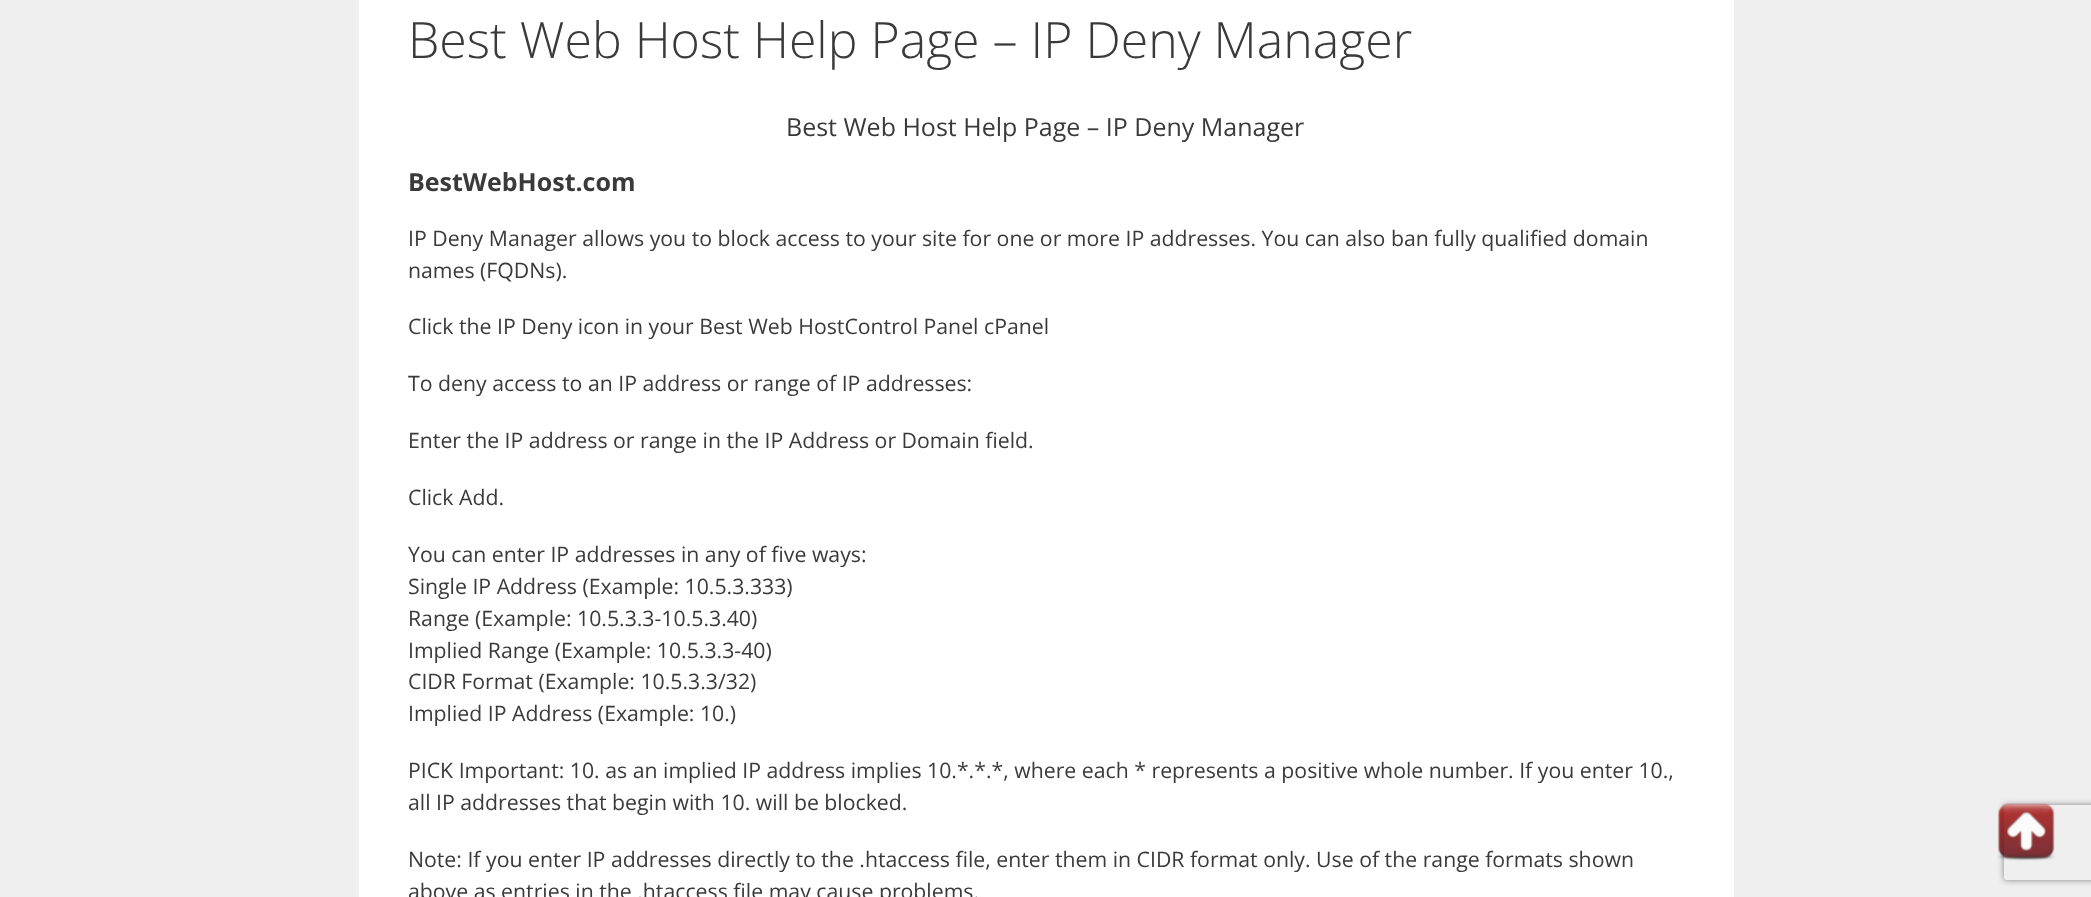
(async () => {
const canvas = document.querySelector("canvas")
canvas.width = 2091
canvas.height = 897
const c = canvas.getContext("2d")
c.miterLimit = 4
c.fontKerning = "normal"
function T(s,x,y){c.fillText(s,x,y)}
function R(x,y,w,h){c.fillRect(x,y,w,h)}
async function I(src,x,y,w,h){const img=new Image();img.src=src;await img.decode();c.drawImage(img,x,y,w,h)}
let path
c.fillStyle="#efefef"
R(0,0,2091,897)
c.fillStyle="#fff"
R(359,0,1375,897)
c.font="300 50px Open Sans"
c.fillStyle="#3a3a3a"
T("Best Web Host Help Page – IP Deny Manager",408,58)
c.font="25px Open Sans"
T("Best Web Host Help Page – IP Deny Manager",786,136)
c.font="bold 25px Open Sans"
T("BestWebHost.com",408,191)
c.font="21.25px Open Sans"
T("IP Deny Manager allows you to block access to your site for one or more IP addresses. You can also ban fully qualified domain",408,246)
T("names (FQDNs).",408,278)
T("Click the IP Deny icon in your Best Web HostControl Panel cPanel",408,334)
T("To deny access to an IP address or range of IP addresses:",408,391)
T("Enter the IP address or range in the IP Address or Domain field.",408,448)
T("Click Add.",408,505)
T("You can enter IP addresses in any of five ways:",408,562)
T("Single IP Address (Example: 10.5.3.333)",408,594)
T("Range (Example: 10.5.3.3-10.5.3.40)",408,626)
T("Implied Range (Example: 10.5.3.3-40)",408,658)
T("CIDR Format (Example: 10.5.3.3/32)",408,689)
T("Implied IP Address (Example: 10.)",408,721)
T("PICK Important: 10. as an implied IP address implies 10.*.*.*, where each * represents a positive whole number. If you enter 10.,",408,778)
T("all IP addresses that begin with 10. will be blocked.",408,810)
T("Note: If you enter IP addresses directly to the .htaccess file, enter them in CIDR format only. Use of the range formats shown",408,867)
T("above as entries in the .htaccess file may cause problems.",408,899)
c.save()
path = new Path2D("M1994 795h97v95h-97zm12.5 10h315c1.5 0 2.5 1 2.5 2.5v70c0 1.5-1 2.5-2.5 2.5h-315c-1.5 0-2.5-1-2.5-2.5v-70c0-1.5 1-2.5 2.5-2.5z")
c.clip(path,"evenodd")
c.fillStyle="#808080"
c.filter="blur(3px)"
c.beginPath()
c.roundRect(2004,805,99,75,2.5)
c.fill()
c.filter="none"
c.restore()
await I("1.png",1997,803,58,58)
})()
